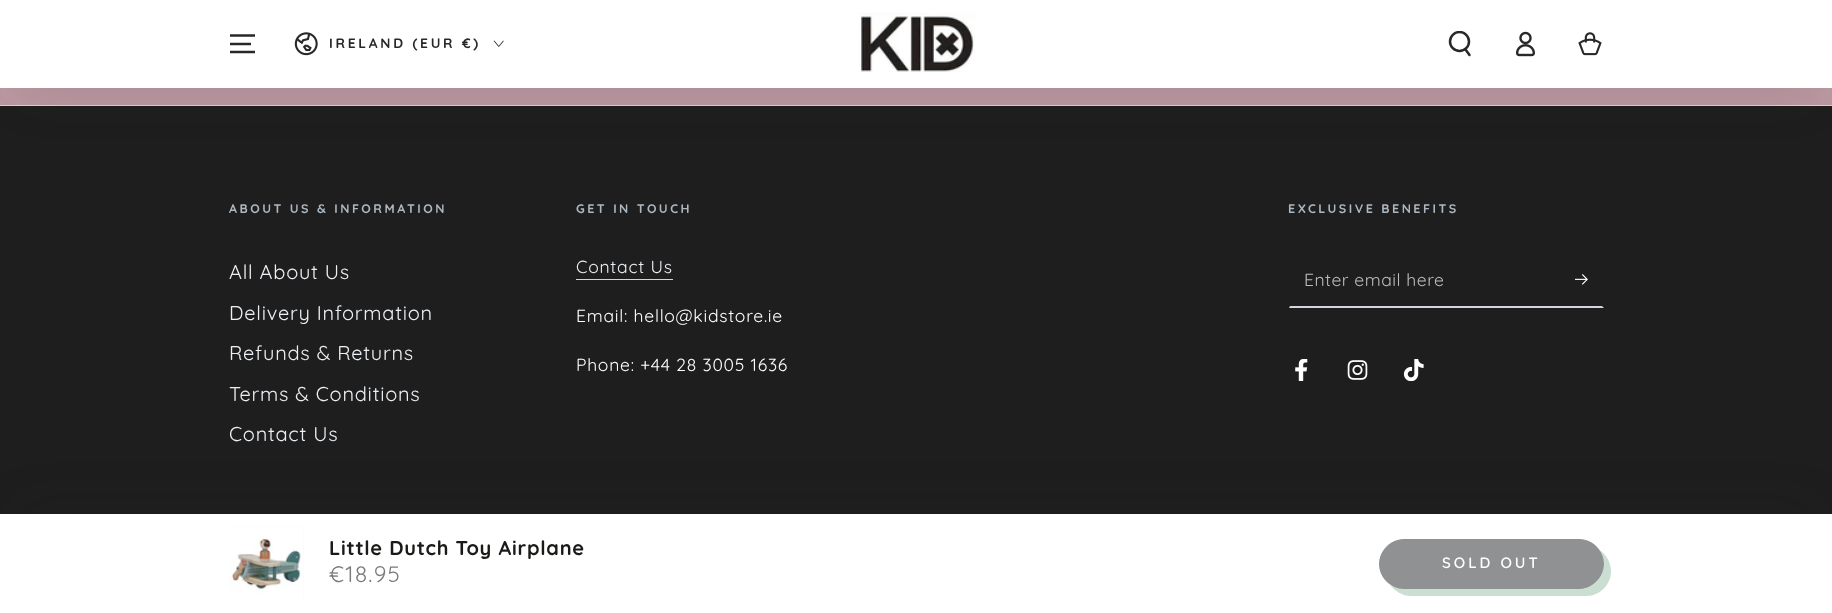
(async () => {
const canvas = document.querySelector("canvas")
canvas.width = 1832
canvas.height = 613
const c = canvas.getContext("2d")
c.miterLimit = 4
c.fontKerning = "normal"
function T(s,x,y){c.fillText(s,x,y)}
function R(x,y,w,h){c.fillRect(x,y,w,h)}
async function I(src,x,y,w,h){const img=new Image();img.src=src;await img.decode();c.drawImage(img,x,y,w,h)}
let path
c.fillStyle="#bb98a2"
R(0,0,1832,613)
c.fillStyle="#1e1e1e"
R(0,106,1832,408)
c.fillStyle="#d2d5d9"
R(0,105,1832,1)
c.fillStyle="#21232633"
c.filter="blur(25px)"
c.beginPath()
c.roundRect(19,63,1795,25,12.5)
c.fill()
c.filter="none"
c.fillStyle="#fff"
R(0,0,1832,88)
path = new Path2D("M230 52h25m-25-8h21m-21-8.5h25")
c.strokeStyle="#282828"
c.lineWidth=2.3
c.stroke(path)
await I("1.png",294,32,24,24)
c.letterSpacing="2.75px"
c.font="bold 13.75px Quicksand"
c.fillStyle="#282828"
T("IRELAND (EUR €)",329,48)
await I("2.png",493,40,11,7)
await I("3.png",859,12,116,60)
c.save()
c.beginPath()
c.rect(1448,31,25,25)
c.clip()
c.beginPath()
c.arc(1459.5,41.5,9.5,0,7)
c.lineWidth=2.5
c.stroke()
c.restore()
path = new Path2D("M1465.5 49.5l4 5.5")
c.lineWidth=2.5
c.lineCap="round"
c.stroke(path)
await I("4.png",1516,31,19,26)
await I("5.png",1578,32,24,24)
c.letterSpacing="2.5px"
c.font="bold 12.5px Quicksand"
c.fillStyle="#adb7c1"
T("ABOUT US & INFORMATION",229,213)
c.letterSpacing="0.75px"
c.font="20px Quicksand"
c.fillStyle="#ecf0f4"
T("All About Us",229,279)
T("Delivery Information",229,320)
T("Refunds & Returns",229,360)
T("Terms & Conditions",229,401)
T("Contact Us",229,441)
c.letterSpacing="2.5px"
c.font="bold 12.5px Quicksand"
c.fillStyle="#adb7c1"
T("GET IN TOUCH",576,213)
c.letterSpacing="0.75px"
c.font="17.5px Quicksand"
c.fillStyle="#ecf0f4"
T("Contact Us",576,273)
c.fillStyle="#d2d5d9"
R(576,279,97,1)
c.fillStyle="#fff"
T("Email: hello@kidstore.ie",576,322)
T("Phone: +44 28 3005 1636",576,371)
c.letterSpacing="2.5px"
c.font="bold 12.5px Quicksand"
c.fillStyle="#adb7c1"
T("EXCLUSIVE BENEFITS",1288,213)
c.fillStyle="#d2d5d9"
path = new Path2D("M1604 308h-315l1-2h312z")
c.fill(path)
c.letterSpacing="0.5px"
c.font="17.5px Quicksand"
c.fillStyle="#bcbcbc"
T("Enter email here",1304,286)
await I("6.png",1575,274,13,11)
await I("7.png",1295,359,13,22)
await I("8.png",1347,360,21,20)
await I("9.png",1403,359,21,22)
c.fillStyle="#21232633"
c.filter="blur(25px)"
c.beginPath()
c.roundRect(19,514,1795,25,12.5)
c.fill()
c.filter="none"
c.fillStyle="#fff"
R(0,514,1832,99)
c.fillStyle="#f3f3f3"
R(229,526,75,75)
await I("10.png",229,526,75,75)
c.letterSpacing="0.75px"
c.font="bold 20px Quicksand"
c.fillStyle="#1a1b18"
T("Little Dutch Toy Airplane",329,555)
c.letterSpacing="1.25px"
c.font="22.5px Quicksand"
c.fillStyle="#797979"
T("€18.95",329,582)
c.fillStyle="#cadfd2"
path = new Path2D("M1390 585c5 6 12 11 21 11h175c14 0 25-11 25-25c0-9-5-16-11-21c2 4 4 9 4 14c0 14-11 25-25 25h-175c-5 0-10-2-14-4z")
c.fill(path)
c.fillStyle="#909193"
c.beginPath()
c.roundRect(1379.5,539.5,224,49,24.5)
c.fill()
c.strokeStyle="#909193"
c.lineWidth=1
c.stroke()
c.letterSpacing="3px"
c.font="600 15px Quicksand"
c.fillStyle="#fff"
T("SOLD OUT",1442,568)
})()
